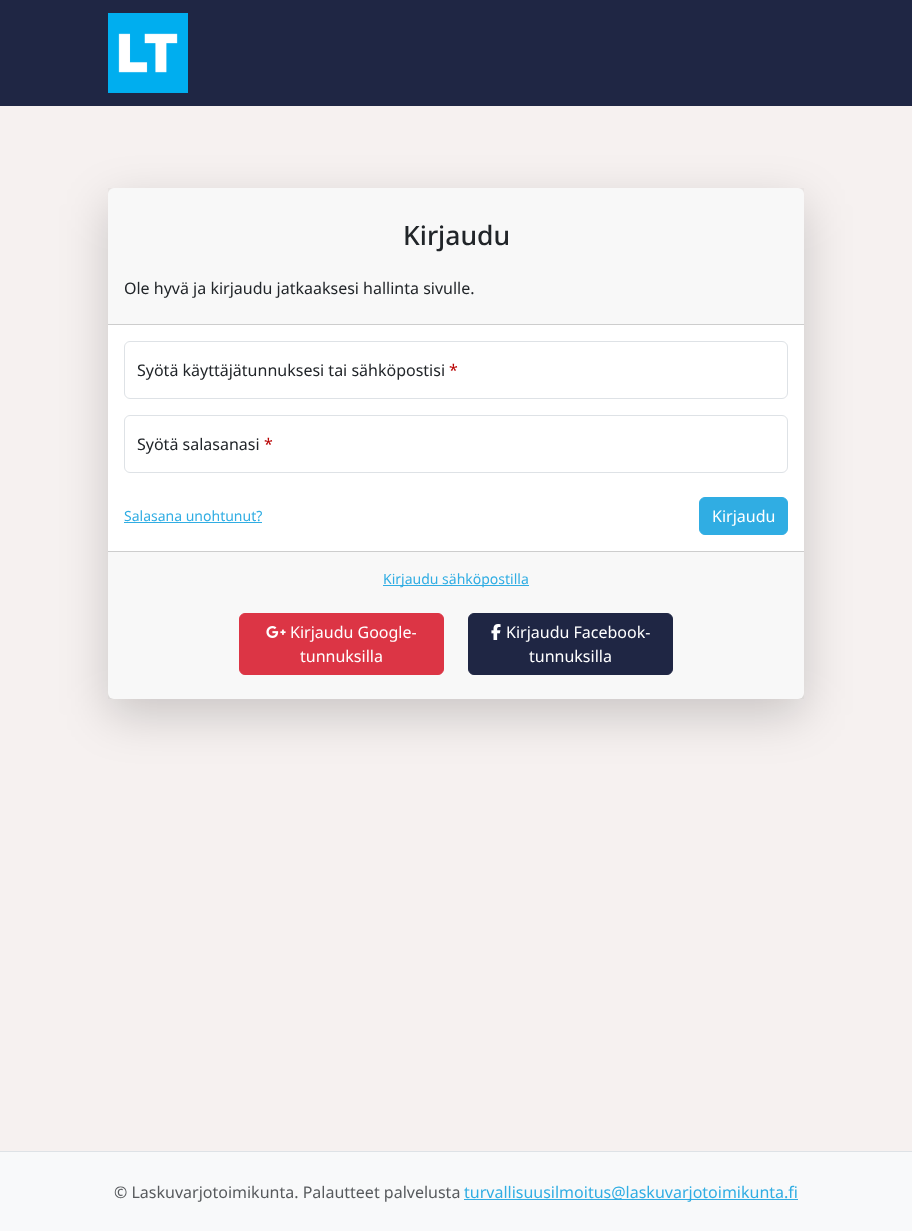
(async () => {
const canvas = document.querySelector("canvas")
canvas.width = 912
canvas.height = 1231
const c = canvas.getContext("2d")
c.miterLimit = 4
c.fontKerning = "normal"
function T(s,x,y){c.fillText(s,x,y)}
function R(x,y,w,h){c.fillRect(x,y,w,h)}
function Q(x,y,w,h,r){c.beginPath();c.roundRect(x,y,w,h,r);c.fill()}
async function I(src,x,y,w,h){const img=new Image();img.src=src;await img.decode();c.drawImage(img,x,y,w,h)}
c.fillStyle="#f6f1f0"
R(0,0,912,1231)
c.fillStyle="#1f2644"
R(0,0,912,106)
await I("1.png",108,13,80,80)
c.fillStyle="#0000002e"
c.filter="blur(24px)"
c.beginPath()
c.roundRect(108,204,696,511,6)
c.fill()
c.filter="none"
c.fillStyle="#fff"
Q(108,188,696,511,6)
c.fillStyle="#21252908"
R(108,188,696,136)
c.fillStyle="#cdcdcd"
R(108,324,696,1)
c.font="500 26.5px Noto Sans"
c.fillStyle="#212529"
T("Kirjaudu",403,245)
c.font="16px Noto Sans"
T("Ole hyvä ja kirjaudu jatkaaksesi hallinta sivulle.",124,294)
c.beginPath()
c.roundRect(124.5,341.5,663,57,5.5)
c.strokeStyle="#dee2e6"
c.stroke()
T("Syötä käyttäjätunnuksesi tai sähköpostisi",137,376)
c.fillStyle="#b80000"
T("*",449,376)
c.beginPath()
c.roundRect(124.5,415.5,663,57,5.5)
c.stroke()
c.fillStyle="#212529"
T("Syötä salasanasi",137,450)
c.fillStyle="#b80000"
T("*",264,450)
c.font="14px Noto Sans"
c.fillStyle="#30ade3"
T("Salasana unohtunut?",124,521)
R(124,522,138,1)
c.beginPath()
c.roundRect(699.5,497.5,88,37,5.5)
c.fill()
c.strokeStyle="#30ade3"
c.stroke()
c.font="16px Noto Sans"
c.fillStyle="#fff"
T("Kirjaudu",712,522)
c.fillStyle="#21252908"
R(108,552,696,147)
c.fillStyle="#cdcdcd"
R(108,551,696,1)
c.fillStyle="#30ade3"
R(383,585,146,1)
c.font="14px Noto Sans"
T("Kirjaudu sähköpostilla",383,584)
c.fillStyle="#dc3545"
c.beginPath()
c.roundRect(239.5,613.5,204,61,5.5)
c.fill()
c.strokeStyle="#dc3545"
c.stroke()
await I("2.png",266,626,20,12)
c.font="16px Noto Sans"
c.fillStyle="#fff"
T("Kirjaudu Google-",290,638)
T("tunnuksilla",300,662)
c.fillStyle="#1f2644"
c.beginPath()
c.roundRect(468.5,613.5,204,61,5.5)
c.fill()
c.strokeStyle="#1f2644"
c.stroke()
await I("3.png",491,624,10,16)
c.fillStyle="#fff"
T("Kirjaudu Facebook-",506,638)
T("tunnuksilla",529,662)
c.fillStyle="#f8f9fa"
R(0,1152,912,79)
c.fillStyle="#dee2e6"
R(0,1151,912,1)
c.fillStyle="#575a5d"
T("© Laskuvarjotoimikunta. Palautteet palvelusta",114,1198)
c.fillStyle="#30ade3"
R(464,1199,334,1)
T("turvallisuusilmoitus@laskuvarjotoimikunta.fi",464,1198)
})()
